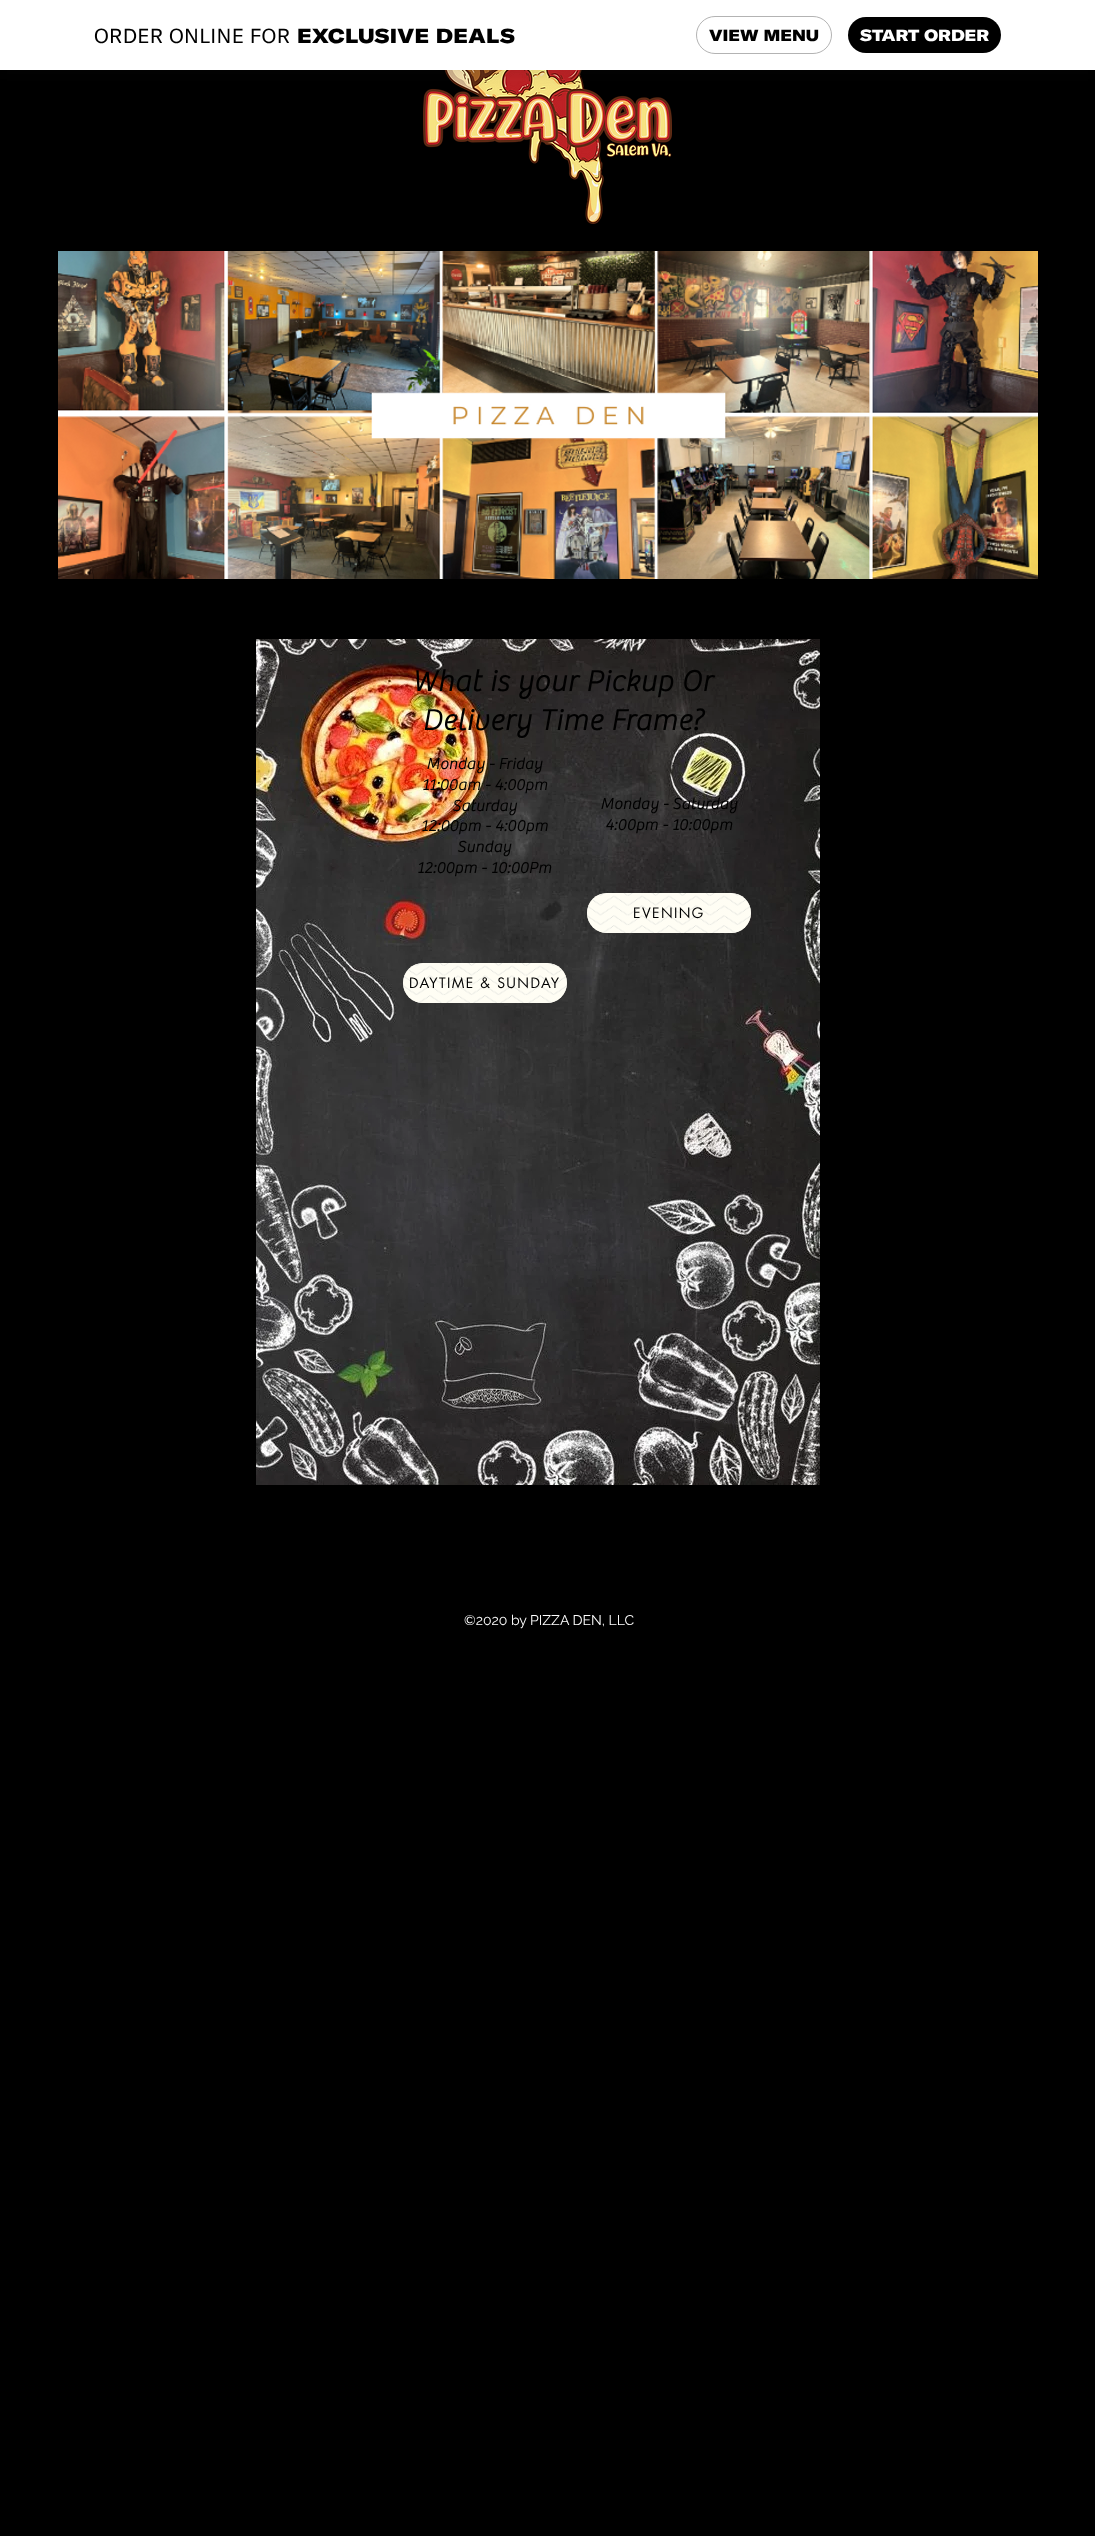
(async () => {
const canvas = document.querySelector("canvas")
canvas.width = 1095
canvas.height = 2536
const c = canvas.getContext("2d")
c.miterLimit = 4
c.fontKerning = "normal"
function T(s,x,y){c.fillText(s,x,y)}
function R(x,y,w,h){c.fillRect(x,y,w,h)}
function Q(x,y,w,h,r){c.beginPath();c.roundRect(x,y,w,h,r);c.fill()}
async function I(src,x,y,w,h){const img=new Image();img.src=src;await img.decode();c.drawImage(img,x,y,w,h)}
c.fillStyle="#000"
R(0,0,1095,2536)
await I("1.png",423,70,249,154)
c.fillStyle="#211e1e1a"
c.filter="blur(8px)"
c.beginPath()
c.rect(0,4,1095,70)
c.fill()
c.filter="none"
c.fillStyle="#fff"
R(0,0,1095,70)
c.letterSpacing="0.3px"
c.font="20px GT America"
c.fillStyle="#000"
T("ORDER ONLINE FOR",94,43)
c.font="900 20px GT America"
T("EXCLUSIVE DEALS",297,43)
c.beginPath()
c.roundRect(696.5,16.5,135,37,18.5)
c.strokeStyle="#b3b3b3"
c.stroke()
c.letterSpacing="0px"
c.font="900 16px GT America"
T("VIEW MENU",709,41)
Q(848,17,153,36,18)
c.fillStyle="#fff"
T("START ORDER",860,41)
await I("2.png",58,251,980,328)
await I("3.png",256,639,564,846)
c.letterSpacing="0.9px"
c.font="bold 30px 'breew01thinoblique'"
c.fillStyle="#000"
T("What is your Pickup Or",412,691)
T("Delivery Time Frame?",422,730)
c.letterSpacing="0.5px"
c.font="bold 16px 'breew01thinoblique'"
T("Monday - Friday",426,769)
T("11:00am - 4:00pm",422,790)
T("Saturday",452,811)
T("12:00pm - 4:00pm",421,831)
T("Sunday",457,852)
T("12:00pm - 10:00Pm",417,873)
T("Monday - Saturday",600,809)
T("4:00pm - 10:00pm",605,830)
c.fillStyle="#fffdf4"
Q(587,893,164,40,20)
await I("4.png",587,893,164,40)
c.letterSpacing="1.4px"
c.font="14px futura"
c.fillStyle="#000"
T("EVENING",633,918)
c.fillStyle="#fffdf4"
Q(403,963,164,40,20)
await I("5.png",403,963,164,40)
c.fillStyle="#000"
T("DAYTIME & SUNDAY",409,988)
c.letterSpacing="0px"
c.font="14px Raleway"
c.fillStyle="#fff"
T("©2020 by PIZZA DEN, LLC",464,1625)
})()
